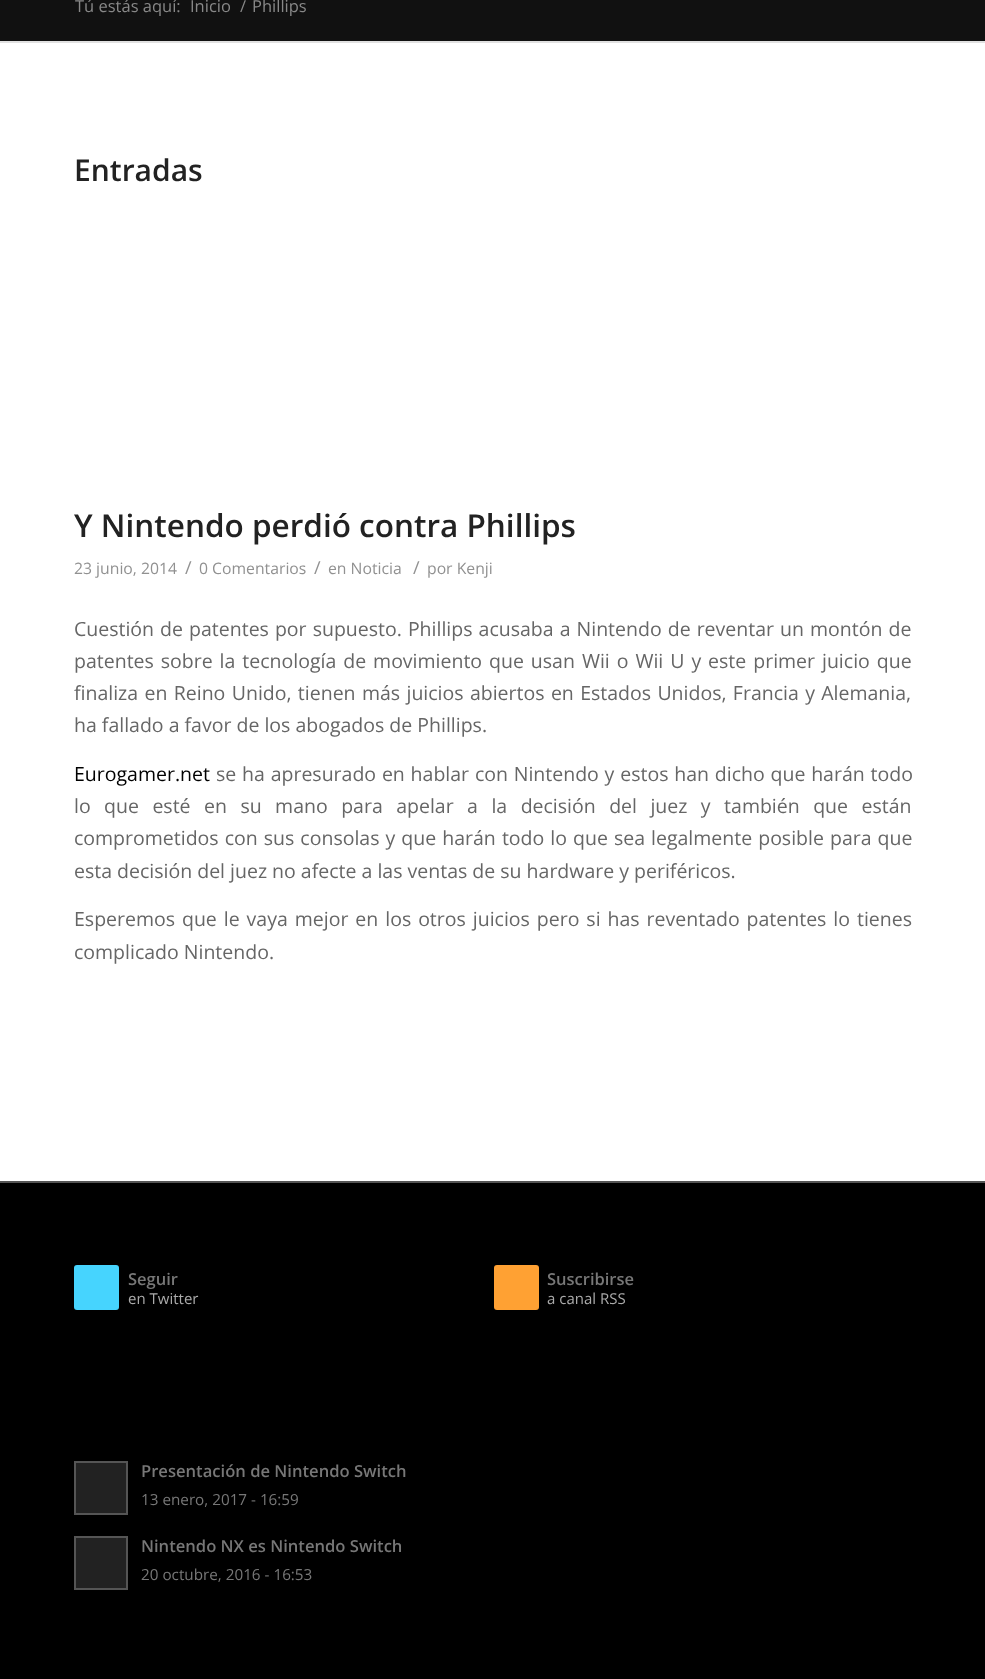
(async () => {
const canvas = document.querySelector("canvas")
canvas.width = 985
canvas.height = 1679
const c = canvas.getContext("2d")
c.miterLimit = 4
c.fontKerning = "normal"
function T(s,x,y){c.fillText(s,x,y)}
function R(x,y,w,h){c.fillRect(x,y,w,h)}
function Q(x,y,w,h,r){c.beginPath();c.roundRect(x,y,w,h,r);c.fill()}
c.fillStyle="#fff"
R(0,0,985,1679)
c.fillStyle="#111"
R(0,0,985,41)
c.font="16.5px Open Sans"
c.fillStyle="#888"
T("Tú estás aquí:",75,12)
T("Inicio",190,12)
T("/",240,12)
T("Phillips",252,12)
c.fillStyle="#e1e1e1"
R(0,41,985,2)
c.font="600 30px Open Sans"
c.fillStyle="#222"
T("Entradas",74,181)
c.font="600 31.5px Open Sans"
T("Y Nintendo perdió contra Phillips",74,537)
c.font="15.75px Open Sans"
c.fillStyle="#919191"
T("23 junio, 2014",74,574)
c.font="18px Open Sans"
T("/",185,574)
c.font="15.75px Open Sans"
T("0 Comentarios",199,574)
c.font="18px Open Sans"
T("/",314,574)
c.font="15.75px Open Sans"
T("en Noticia",328,574)
c.font="18px Open Sans"
T("/",413,574)
c.font="15.75px Open Sans"
T("por Kenji",427,574)
c.wordSpacing="1px"
c.font="19.5px Open Sans"
c.fillStyle="#666"
T("Cuestión de patentes por supuesto. Phillips acusaba a Nintendo de reventar un montón de",74,636)
c.wordSpacing="1.9px"
T("patentes sobre la tecnología de movimiento que usan Wii o Wii U y este primer juicio que",74,668)
c.wordSpacing="1.3px"
T("finaliza en Reino Unido, tienen más juicios abiertos en Estados Unidos, Francia y Alemania,",74,700)
c.wordSpacing="0px"
T("ha fallado a favor de los abogados de Phillips.",74,732)
c.fillStyle="#000"
T("Eurogamer.net",74,781)
c.wordSpacing="0.75px"
c.fillStyle="#666"
T("se ha apresurado en hablar con Nintendo y estos han dicho que harán todo",216,781)
c.wordSpacing="8.4px"
T("lo que esté en su mano para apelar a la decisión del juez y también que están",74,813)
c.wordSpacing="1px"
T("comprometidos con sus consolas y que harán todo lo que sea legalmente posible para que",74,845)
c.wordSpacing="0px"
T("esta decisión del juez no afecte a las ventas de su hardware y periféricos.",74,878)
c.wordSpacing="1.9px"
T("Esperemos que le vaya mejor en los otros juicios pero si has reventado patentes lo tienes",74,926)
c.wordSpacing="0px"
T("complicado Nintendo.",74,959)
c.fillStyle="#000"
R(0,1183,985,496)
c.fillStyle="#555"
R(0,1181,985,2)
c.fillStyle="#46d4fe"
Q(74,1265,45,45,3)
c.font="600 16.5px Open Sans"
c.fillStyle="#777"
T("Seguir",128,1285)
c.font="15px Open Sans"
c.fillStyle="#aaa"
T("en Twitter",128,1304)
c.fillStyle="#ffa133"
Q(494,1265,45,45,3)
c.font="600 16.5px Open Sans"
c.fillStyle="#777"
T("Suscribirse",547,1285)
c.font="15px Open Sans"
c.fillStyle="#aaa"
T("a canal RSS",547,1304)
c.fillStyle="#222"
c.beginPath()
c.rect(75,1462,52,52)
c.fill()
c.strokeStyle="#555"
c.lineWidth=2
c.stroke()
c.font="600 16.6px Open Sans"
c.fillStyle="#777"
T("Presentación de Nintendo Switch",141,1477)
c.font="15.25px Open Sans"
T("13 enero, 2017 - 16:59",141,1505)
c.fillStyle="#222"
c.beginPath()
c.rect(75,1537,52,52)
c.fill()
c.stroke()
c.font="600 16.6px Open Sans"
c.fillStyle="#777"
T("Nintendo NX es Nintendo Switch",141,1552)
c.font="15.25px Open Sans"
T("20 octubre, 2016 - 16:53",141,1580)
})()
